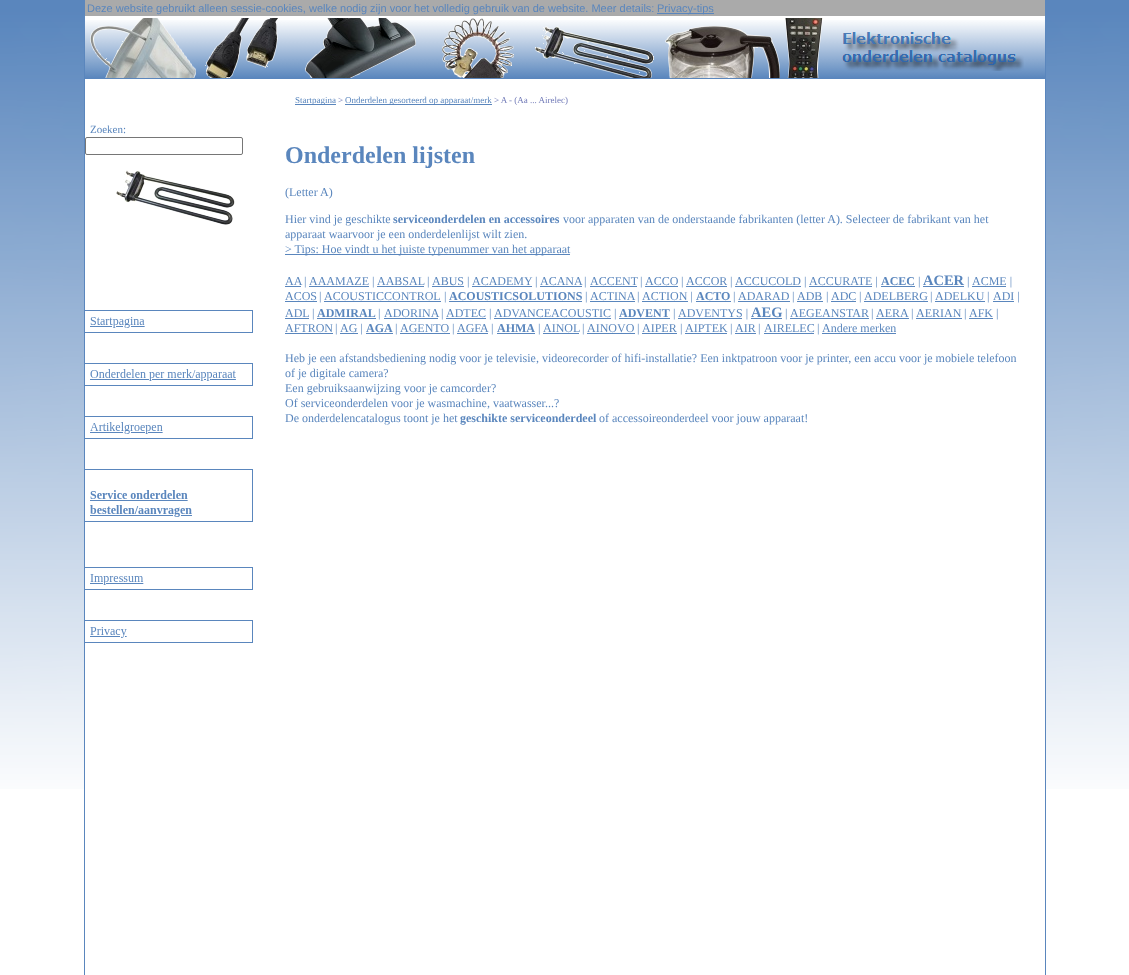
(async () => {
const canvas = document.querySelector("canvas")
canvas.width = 1129
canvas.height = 975
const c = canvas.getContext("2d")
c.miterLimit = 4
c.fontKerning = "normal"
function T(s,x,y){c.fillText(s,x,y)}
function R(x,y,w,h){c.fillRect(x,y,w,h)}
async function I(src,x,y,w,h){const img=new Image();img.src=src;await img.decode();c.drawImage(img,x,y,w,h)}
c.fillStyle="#fff"
R(0,0,1129,975)
await I("1.png",0,0,1129,789)
R(85,16,960,773)
c.fillStyle="#5a86bd"
R(1045,28,1,947)
R(84,28,1,947)
c.fillStyle="#aaa"
R(85,0,960,16)
c.font="11px Liberation Sans"
c.fillStyle="#5a86bd"
T("Deze website gebruikt alleen sessie-cookies, welke nodig zijn voor het volledig gebruik van de website. Meer details:",87,12)
R(657,13,57,1)
T("Privacy-tips",657,12)
await I("2.png",85,20,960,58)
R(85,78,960,1)
await I("3.png",90,18,106,60)
await I("4.png",205,18,73,60)
await I("5.png",305,18,111,60)
await I("6.png",442,18,72,60)
await I("7.png",535,26,119,52)
await I("8.png",665,26,115,52)
await I("9.png",785,18,38,60)
await I("10.png",842,32,182,39)
R(295,104,41,1)
c.font="9px Liberation Serif"
T("Startpagina",295,103)
c.fillStyle="#727bb8"
T(">",338,103)
c.fillStyle="#5a86bd"
R(345,104,147,1)
T("Onderdelen gesorteerd op apparaat/merk",345,103)
c.fillStyle="#727bb8"
T("> A - (Aa ... Airelec)",494,103)
c.font="11px Liberation Serif"
c.fillStyle="#5a86bd"
T("Zoeken:",90,133)
c.beginPath()
c.roundRect(85.5,137.5,157,17,1.5)
c.strokeStyle="#767676"
c.stroke()
await I("11.png",85,170,168,473)
c.font="bold 24px Liberation Serif"
T("Onderdelen lijsten",285,163)
c.font="12px Liberation Serif"
T("(Letter A)",285,196)
T("Hier vind je geschikte",285,223)
c.font="bold 12px Liberation Serif"
T("serviceonderdelen en accessoires",393,223)
c.font="12px Liberation Serif"
T("voor apparaten van de onderstaande fabrikanten (letter A). Selecteer de fabrikant van het",563,223)
T("apparaat waarvoor je een onderdelenlijst wilt zien.",285,238)
R(285,254,285,1)
T("> Tips: Hoe vindt u het juiste typenummer van het apparaat",285,253)
T("AA",285,285)
R(285,286,16,1)
T("|",304,285)
T("AAAMAZE",309,285)
R(309,286,60,1)
T("|",372,285)
T("AABSAL",377,285)
R(377,286,47,1)
T("|",427,285)
T("ABUS",432,285)
R(432,286,32,1)
T("|",467,285)
T("ACADEMY",472,285)
R(472,286,60,1)
T("|",535,285)
T("ACANA",540,285)
R(540,286,42,1)
T("|",584,285)
T("ACCENT",590,285)
R(590,286,47,1)
T("|",640,285)
T("ACCO",645,285)
R(645,286,33,1)
T("|",681,285)
T("ACCOR",686,285)
R(686,286,41,1)
T("|",730,285)
T("ACCUCOLD",735,285)
R(735,286,66,1)
T("|",804,285)
R(809,286,63,1)
T("ACCURATE |",809,285)
c.font="bold 12px Liberation Serif"
T("ACEC",881,285)
R(881,286,34,1)
c.font="12px Liberation Serif"
T("|",918,285)
c.font="bold 14.5px Liberation Serif"
T("ACER",923,285)
R(923,286,41,1)
c.font="12px Liberation Serif"
T("|",967,285)
R(972,286,34,1)
T("ACME |",972,285)
T("ACOS",285,300)
R(285,301,32,1)
T("|",319,300)
T("ACOUSTICCONTROL",324,300)
R(324,301,117,1)
T("|",444,300)
c.font="bold 12px Liberation Serif"
T("ACOUSTICSOLUTIONS",449,300)
R(449,301,133,1)
c.font="12px Liberation Serif"
T("|",585,300)
T("ACTINA",590,300)
R(590,301,45,1)
T("|",637,300)
R(642,301,46,1)
T("ACTION |",642,300)
c.font="bold 12px Liberation Serif"
T("ACTO",696,300)
R(696,301,35,1)
c.font="12px Liberation Serif"
T("|",733,300)
T("ADARAD",738,300)
R(738,301,52,1)
T("|",792,300)
T("ADB",797,300)
R(797,301,26,1)
T("|",826,300)
T("ADC",831,300)
R(831,301,25,1)
T("|",859,300)
T("ADELBERG",864,300)
R(864,301,64,1)
T("|",930,300)
T("ADELKU",935,300)
R(935,301,50,1)
T("|",987,300)
R(993,301,21,1)
T("ADI |",993,300)
T("ADL",285,317)
R(285,318,24,1)
T("|",312,317)
c.font="bold 12px Liberation Serif"
T("ADMIRAL",317,317)
R(317,318,59,1)
c.font="12px Liberation Serif"
T("|",378,317)
T("ADORINA",384,317)
R(384,318,54,1)
T("|",441,317)
T("ADTEC",446,317)
R(446,318,40,1)
T("|",489,317)
R(494,318,117,1)
T("ADVANCEACOUSTIC |",494,317)
c.font="bold 12px Liberation Serif"
T("ADVENT",619,317)
R(619,318,51,1)
c.font="12px Liberation Serif"
T("|",673,317)
R(678,318,64,1)
T("ADVENTYS |",678,317)
c.font="bold 14.5px Liberation Serif"
T("AEG",751,317)
R(751,318,31,1)
c.font="12px Liberation Serif"
T("|",785,317)
T("AEGEANSTAR",790,317)
R(790,318,79,1)
T("|",871,317)
T("AERA",876,317)
R(876,318,33,1)
T("|",911,317)
T("AERIAN",916,317)
R(916,318,46,1)
T("|",964,317)
R(969,318,24,1)
T("AFK |",969,317)
T("AFTRON",285,332)
R(285,333,48,1)
T("|",335,332)
R(340,333,18,1)
T("AG |",340,332)
c.font="bold 12px Liberation Serif"
T("AGA",366,332)
R(366,333,27,1)
c.font="12px Liberation Serif"
T("|",395,332)
T("AGENTO",400,332)
R(400,333,50,1)
T("|",452,332)
T("AGFA",457,332)
R(457,333,31,1)
T("|",491,332)
c.font="bold 12px Liberation Serif"
T("AHMA",497,332)
R(497,333,38,1)
c.font="12px Liberation Serif"
T("|",538,332)
T("AINOL",543,332)
R(543,333,36,1)
T("|",582,332)
T("AINOVO",587,332)
R(587,333,48,1)
T("|",637,332)
T("AIPER",642,332)
R(642,333,35,1)
T("|",680,332)
T("AIPTEK",685,332)
R(685,333,42,1)
T("|",730,332)
T("AIR",735,332)
R(735,333,21,1)
T("|",758,332)
T("AIRELEC",764,332)
R(764,333,50,1)
T("|",817,332)
T("Andere merken",822,332)
R(822,333,74,1)
T("Heb je een afstandsbediening nodig voor je televisie, videorecorder of hifi-installatie? Een inktpatroon voor je printer, een accu voor je mobiele telefoon",285,362)
T("of je digitale camera?",285,377)
T("Een gebruiksaanwijzing voor je camcorder?",285,392)
T("Of serviceonderdelen voor je wasmachine, vaatwasser...?",285,407)
T("De onderdelencatalogus toont je het",285,422)
c.font="bold 12px Liberation Serif"
T("geschikte serviceonderdeel",460,422)
c.font="12px Liberation Serif"
T("of accessoireonderdeel voor jouw apparaat!",599,422)
})()
